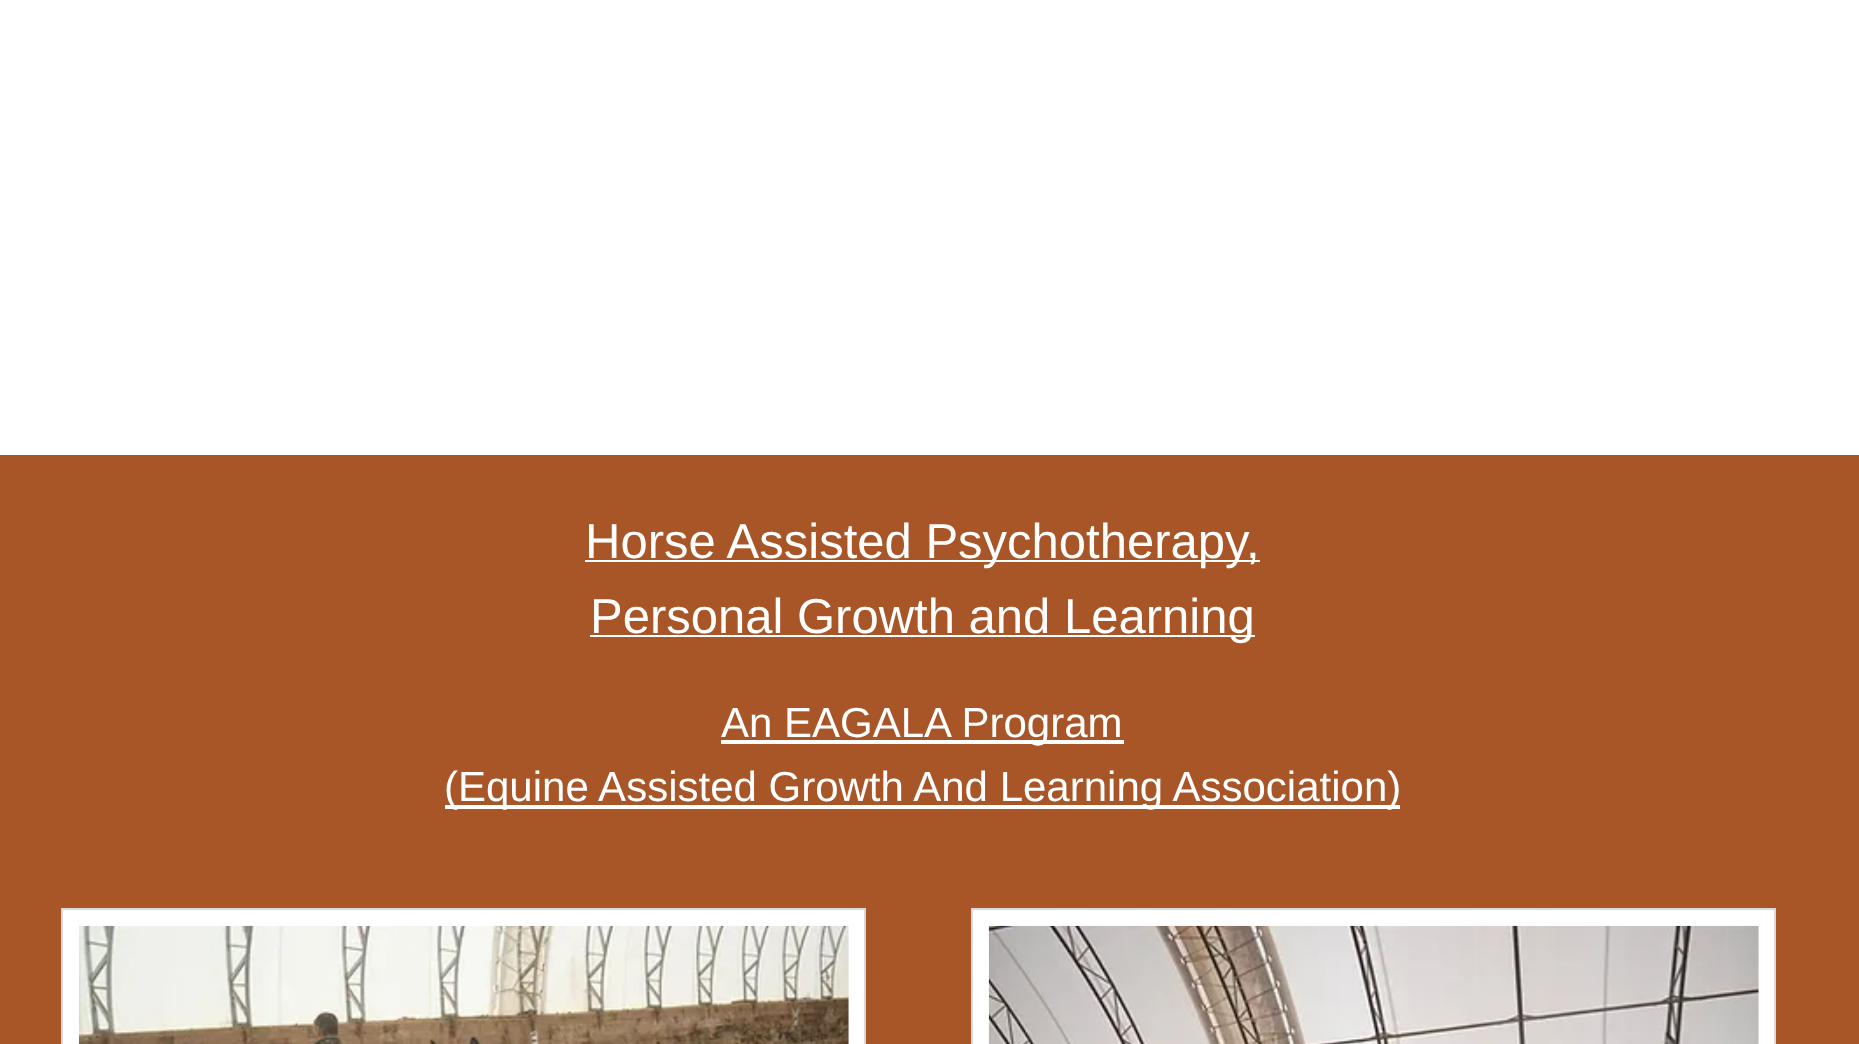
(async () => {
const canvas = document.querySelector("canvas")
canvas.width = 1859
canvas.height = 1044
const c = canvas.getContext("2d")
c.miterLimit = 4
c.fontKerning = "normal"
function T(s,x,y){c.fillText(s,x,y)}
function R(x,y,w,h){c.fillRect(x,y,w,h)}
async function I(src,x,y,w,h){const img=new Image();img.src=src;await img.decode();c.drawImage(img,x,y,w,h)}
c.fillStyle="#fff"
R(0,0,1859,1044)
c.fillStyle="#a85527"
R(0,455,1859,589)
c.fillStyle="#fff"
R(585,560,675,2)
c.font="49px Liberation Sans"
T("Horse Assisted Psychotherapy,",585,558)
R(590,635,665,2)
T("Personal Growth and Learning",590,633)
R(721,740,403,4)
c.font="42px Liberation Sans"
T("An EAGALA Program",721,737)
R(445,805,955,4)
T("(Equine Assisted Growth And Learning Association)",444,801)
c.beginPath()
c.rect(62,909,803,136)
c.fill()
c.strokeStyle="#d9d9d9"
c.lineWidth=2
c.stroke()
await I("1.png",78,925,771,119)
c.beginPath()
c.rect(972,909,803,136)
c.fill()
c.stroke()
await I("2.png",988,925,771,119)
})()
